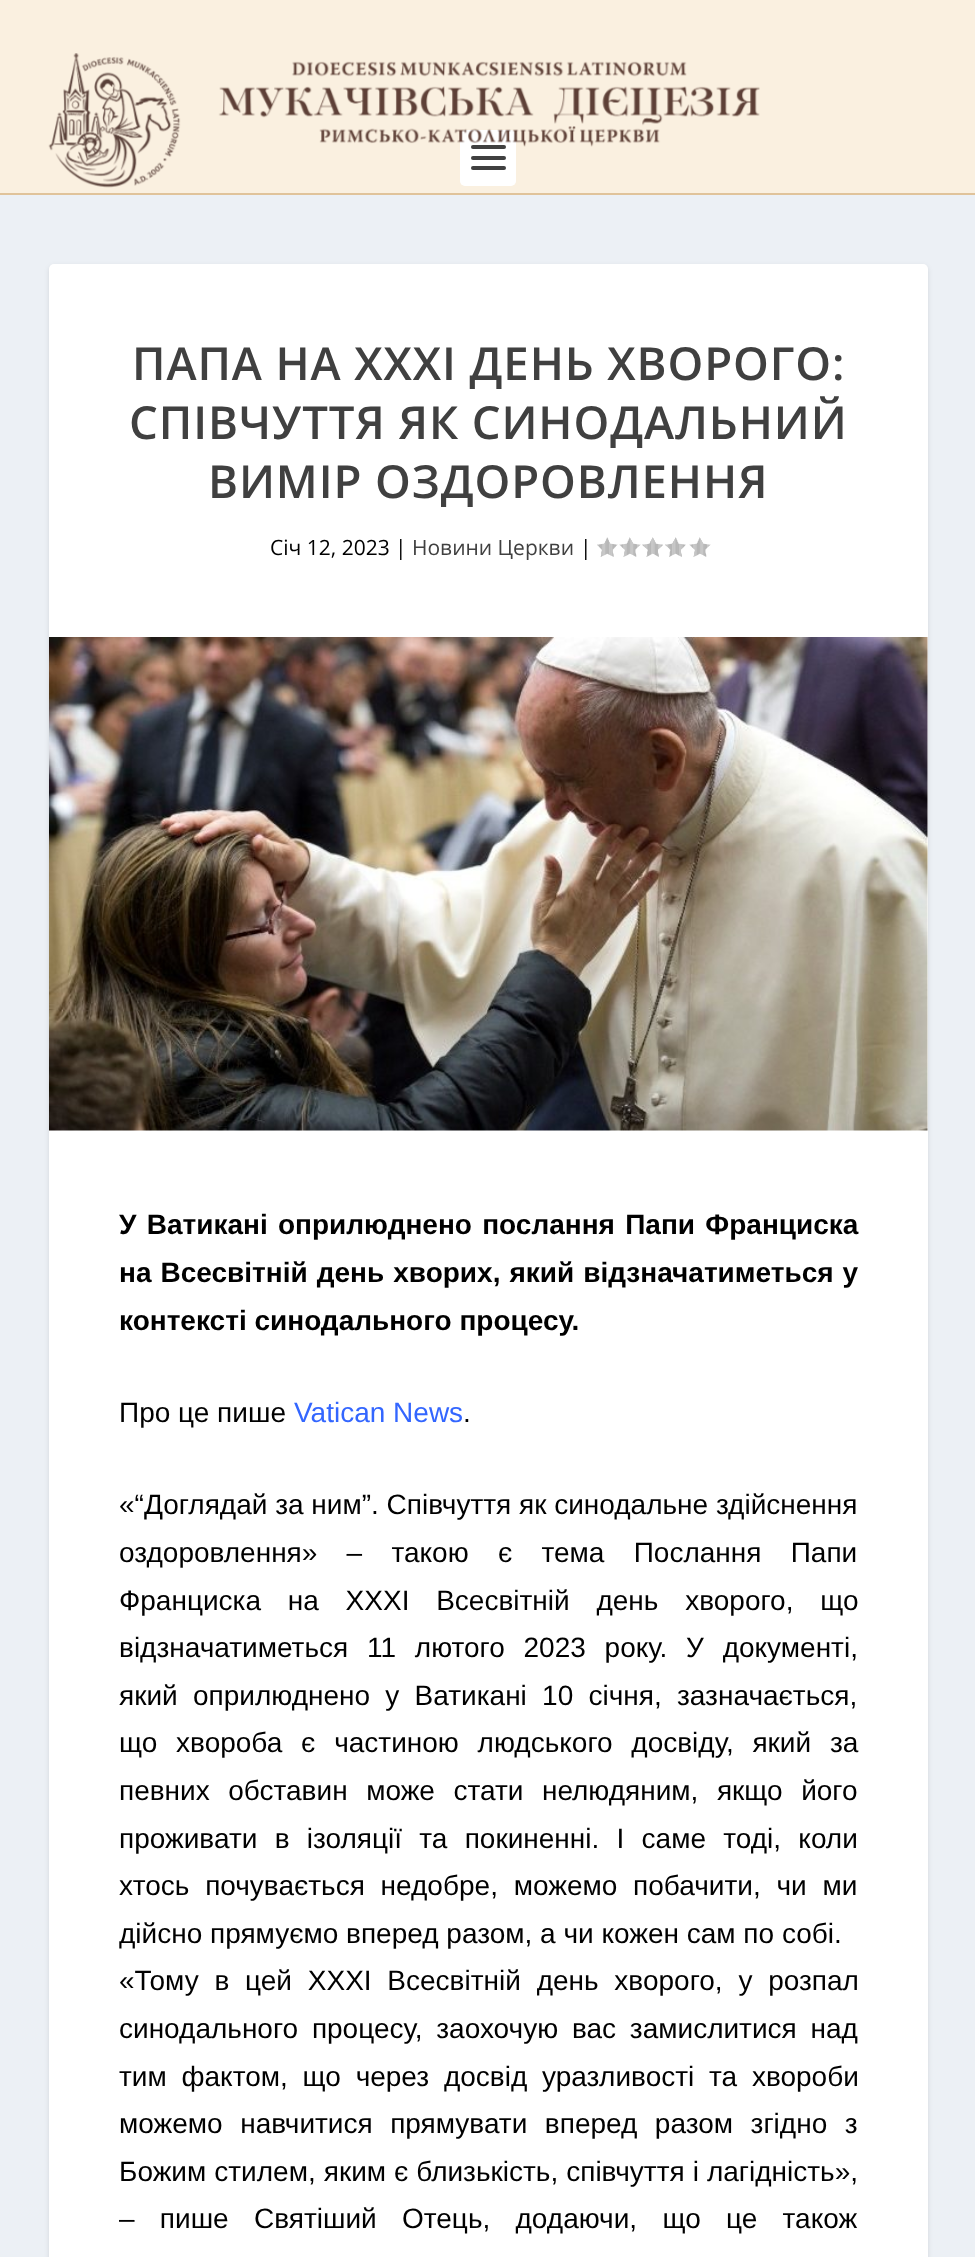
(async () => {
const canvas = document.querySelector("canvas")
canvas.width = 975
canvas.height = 2257
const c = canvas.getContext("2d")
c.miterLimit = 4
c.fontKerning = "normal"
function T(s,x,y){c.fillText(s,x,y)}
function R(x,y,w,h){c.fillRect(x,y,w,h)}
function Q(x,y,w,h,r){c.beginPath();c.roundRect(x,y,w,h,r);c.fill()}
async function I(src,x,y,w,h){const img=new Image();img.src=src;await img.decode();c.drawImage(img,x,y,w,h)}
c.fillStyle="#ecf0f5"
R(0,0,975,2257)
c.fillStyle="#faf0e0"
R(0,0,975,193)
c.fillStyle="#e0c39a"
R(0,193,975,2)
c.fillStyle="#fff"
Q(460,130,56,56,5)
c.fillStyle="#404040"
Q(471,145,35,4,2)
Q(471,156,35,4,2)
Q(471,166,35,4,2)
await I("1.png",48,53,712,135)
c.fillStyle="#0000001a"
c.filter="blur(2.5px)"
c.beginPath()
c.roundRect(49,266,879,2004,5)
c.fill()
c.filter="none"
c.fillStyle="#fff"
Q(49,264,879,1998,5)
c.letterSpacing="0.9px"
c.font="600 45.5px Open Sans"
c.fillStyle="#404040"
T("ПАПА НА ХХХІ ДЕНЬ ХВОРОГО:",132,380)
T("СПІВЧУТТЯ ЯК СИНОДАЛЬНИЙ",129,439)
T("ВИМІР ОЗДОРОВЛЕННЯ",208,498)
c.letterSpacing="0px"
c.font="21px Open Sans"
c.fillStyle="#000"
T("Січ 12, 2023 |",270,555)
c.fillStyle="#404040"
T("Новини Церкви",412,555)
c.fillStyle="#000"
T("|",580,555)
await I("2.png",597,537,21,20)
await I("3.png",619,537,22,20)
await I("4.png",642,537,21,20)
await I("5.png",665,537,21,20)
await I("3.png",689,537,22,20)
await I("6.png",49,637,879,494)
c.wordSpacing="2.5px"
c.font="bold 28px Liberation Sans"
T("У Ватикані оприлюднено послання Папи Франциска",119,1234)
c.wordSpacing="1.25px"
T("на Всесвітній день хворих, який відзначатиметься у",119,1282)
c.wordSpacing="0px"
T("контексті синодального процесу.",119,1330)
c.font="28px Liberation Sans"
T("Про це пише",119,1422)
c.fillStyle="#36f"
T("Vatican News",294,1422)
c.fillStyle="#000"
T(".",463,1422)
T("«“Доглядай за ним”. Співчуття як синодальне здійснення",119,1514)
c.wordSpacing="21.5px"
T("оздоровлення» – такою є тема Послання Папи",119,1562)
c.wordSpacing="19px"
T("Франциска на ХХХІ Всесвітній день хворого, що",119,1610)
c.wordSpacing="11px"
T("відзначатиметься 11 лютого 2023 року. У документі,",119,1657)
c.wordSpacing="7.5px"
T("який оприлюднено у Ватикані 10 січня, зазначається,",119,1705)
c.wordSpacing="11px"
T("що хвороба є частиною людського досвіду, який за",119,1752)
c.wordSpacing="10.75px"
T("певних обставин може стати нелюдяним, якщо його",119,1800)
c.wordSpacing="9.5px"
T("проживати в ізоляції та покиненні. І саме тоді, коли",119,1848)
c.wordSpacing="8px"
T("хтось почувається недобре, можемо побачити, чи ми",119,1895)
c.wordSpacing="0px"
T("дійсно прямуємо вперед разом, а чи кожен сам по собі.",119,1943)
c.wordSpacing="8px"
T("«Тому в цей ХХХІ Всесвітній день хворого, у розпал",119,1990)
c.wordSpacing="6px"
T("синодального процесу, заохочую вас замислитися над",119,2038)
c.wordSpacing="7px"
T("тим фактом, що через досвід уразливості та хвороби",119,2086)
c.wordSpacing="9.75px"
T("можемо навчитися прямувати вперед разом згідно з",119,2133)
c.wordSpacing="0.25px"
T("Божим стилем, яким є близькість, співчуття і лагідність»,",119,2181)
c.wordSpacing="17.5px"
T("– пише Святіший Отець, додаючи, що це також",119,2228)
})()
